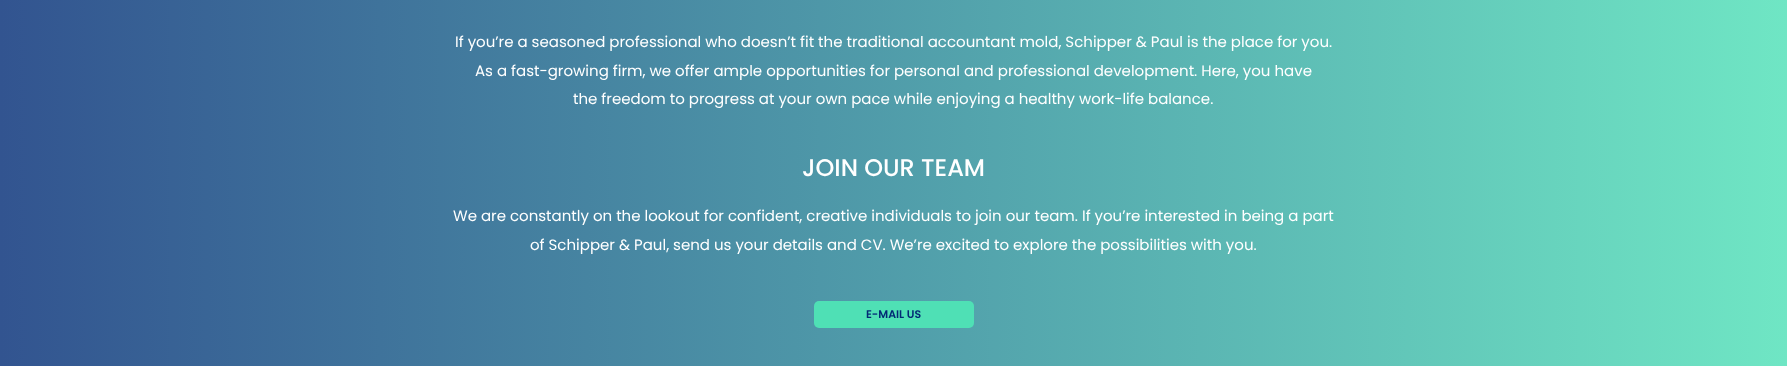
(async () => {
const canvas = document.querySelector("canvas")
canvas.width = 1787
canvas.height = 366
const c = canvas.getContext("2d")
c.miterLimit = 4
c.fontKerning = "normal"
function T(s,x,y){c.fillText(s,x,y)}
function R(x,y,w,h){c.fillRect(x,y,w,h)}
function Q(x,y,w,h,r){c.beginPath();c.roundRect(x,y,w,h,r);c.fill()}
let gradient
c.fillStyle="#fff"
R(0,0,1787,366)
gradient = c.createLinearGradient(0,-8,1787,-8)
gradient.addColorStop(0,"#325490")
gradient.addColorStop(1,"#6fe6c4")
c.fillStyle = gradient
R(0,0,1787,366)
c.font="15px Poppins"
c.fillStyle="#fff"
T("If you’re a seasoned professional who doesn’t fit the traditional accountant mold, Schipper & Paul is the place for you.",455,47)
T("As a fast-growing firm, we offer ample opportunities for personal and professional development. Here, you have",475,76)
T("the freedom to progress at your own pace while enjoying a healthy work-life balance.",573,104)
c.font="500 24px Poppins"
T("JOIN OUR TEAM",802,176)
c.font="15px Poppins"
T("We are constantly on the lookout for confident, creative individuals to join our team. If you’re interested in being a part",453,221)
T("of Schipper & Paul, send us your details and CV. We’re excited to explore the possibilities with you.",530,250)
c.fillStyle="#4fe0b5"
Q(814,301,160,27,5)
c.font="600 11px Poppins"
c.fillStyle="#032975"
T("E-MAIL US",866,318)
})()
